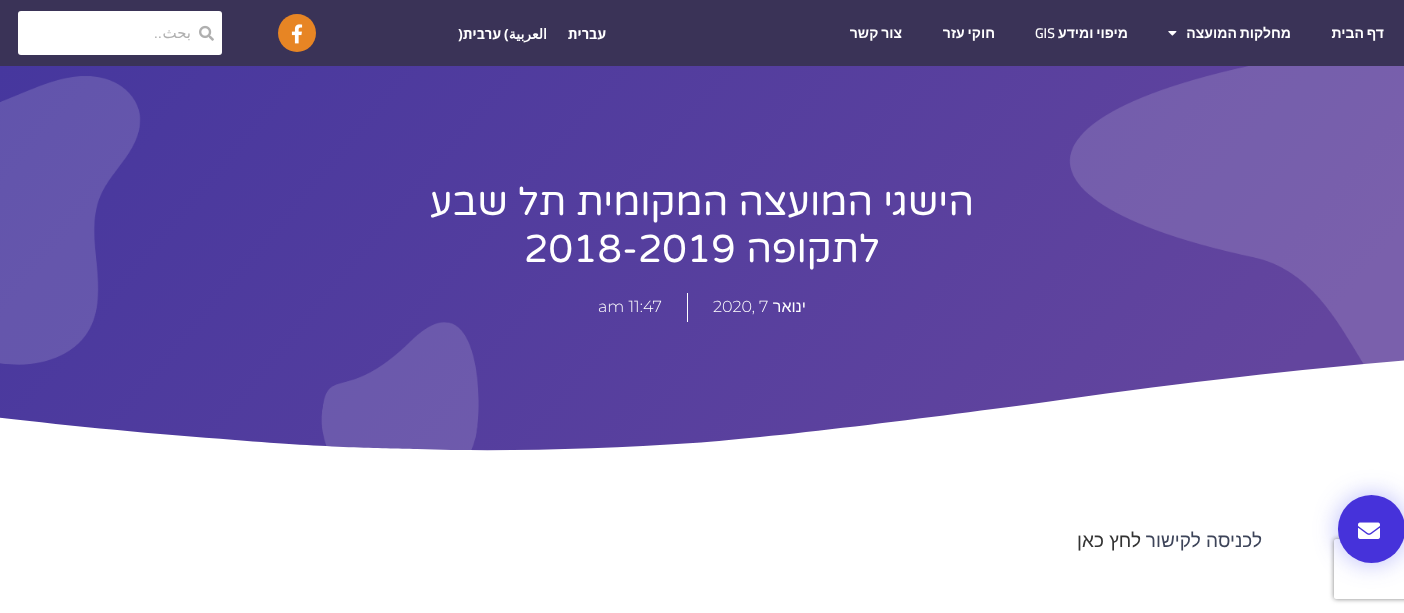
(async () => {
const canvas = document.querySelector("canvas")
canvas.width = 1404
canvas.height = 613
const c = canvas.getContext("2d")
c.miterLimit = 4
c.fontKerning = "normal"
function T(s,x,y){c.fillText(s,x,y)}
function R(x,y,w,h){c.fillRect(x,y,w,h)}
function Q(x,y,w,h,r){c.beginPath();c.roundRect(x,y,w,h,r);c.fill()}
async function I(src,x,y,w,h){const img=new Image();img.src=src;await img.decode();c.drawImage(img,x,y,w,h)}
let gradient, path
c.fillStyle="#fff"
R(0,0,1404,613)
c.fillStyle="#3a3357"
R(0,0,1404,66)
c.wordSpacing="-1px"
c.direction="rtl"
c.font="bold 14px Liberation Sans"
c.fillStyle="#fff"
T("דף הבית",1384,38)
T("מחלקות המועצה",1291,38)
await I("1.png",1168,31,9,5)
T("מיפוי ומידע",1128,38)
c.wordSpacing="0px"
c.direction="ltr"
c.font="600 14px Cairo"
T("GIS",1035,38)
c.wordSpacing="-1px"
c.direction="rtl"
c.font="bold 14px Liberation Sans"
T("חוקי עזר",995,38)
T("צור קשר",902,38)
c.wordSpacing="0px"
c.font="bold 14px Open Sans"
T("עברית",606,39)
c.font="bold 14px DejaVu Sans"
T("العربية",547,39)
c.direction="ltr"
c.font="bold 14px Open Sans"
T("(",504,39)
c.direction="rtl"
T("ערבית",501,39)
c.direction="ltr"
T(")",458,39)
c.fillStyle="#e78524"
c.beginPath()
c.arc(297,33,19,0,7)
c.fill()
await I("2.png",291,24,12,20)
c.fillStyle="#fff"
Q(18,11,204,44,3)
await I("3.png",199,25,15,16)
c.direction="rtl"
c.font="15px DejaVu Sans"
c.fillStyle="#afafaf"
T("بحث",191,38)
c.font="15px Liberation Sans"
T("..",162,38)
gradient = c.createLinearGradient(194,-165,1210,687)
gradient.addColorStop(0,"#46379e")
gradient.addColorStop(.89,"#63459e")
c.fillStyle = gradient
R(0,66,1404,385)
await I("4.png",0,66,1404,385)
c.font="39px Varela Round"
c.fillStyle="#fff"
T("הישגי המועצה המקומית תל שבע",974,215)
T("לתקופה",880,262)
c.direction="ltr"
T("2018-2019",524,262)
c.direction="rtl"
c.font="16px Liberation Sans"
T("ינואר",806,312)
c.direction="ltr"
c.font="300 16px Montserrat"
T("2020, 7",713,312)
R(687,293,1,29)
T("am 11:47",598,312)
path = new Path2D("M417 449c82 3 188 0 276-6c86-6 258-28 367-43c276-39 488-53 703-60c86-2 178-4 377 3c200 8 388 31 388 31v83h-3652v-36c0 0 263-39 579-37c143 1 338 8 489 27c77 10 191 22 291 29c99 8 144 8 182 9z")
c.fill(path)
c.fillStyle="#3538f059"
c.filter="blur(12.5px)"
c.beginPath()
c.roundRect(1338,495,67,68,33.5)
c.fill()
c.filter="none"
c.save()
path = new Path2D("M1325 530h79v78h-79zm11 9h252c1 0 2 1 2 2v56c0 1-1 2-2 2h-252c-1 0-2-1-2-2v-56c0-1 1-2 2-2z")
c.clip(path,"evenodd")
c.fillStyle="#808080"
c.filter="blur(2.5px)"
c.beginPath()
c.roundRect(1334,539,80,60,2)
c.fill()
c.filter="none"
c.restore()
c.fillStyle="#4632da"
Q(1338,495,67,68,33.5)
await I("5.png",1358,522,22,17)
c.direction="rtl"
c.font="19px Liberation Sans"
c.fillStyle="#3d4459"
T("לכניסה לקישור",1262,547)
c.fillStyle="#333"
T("לחץ כאן",1141,547)
})()
